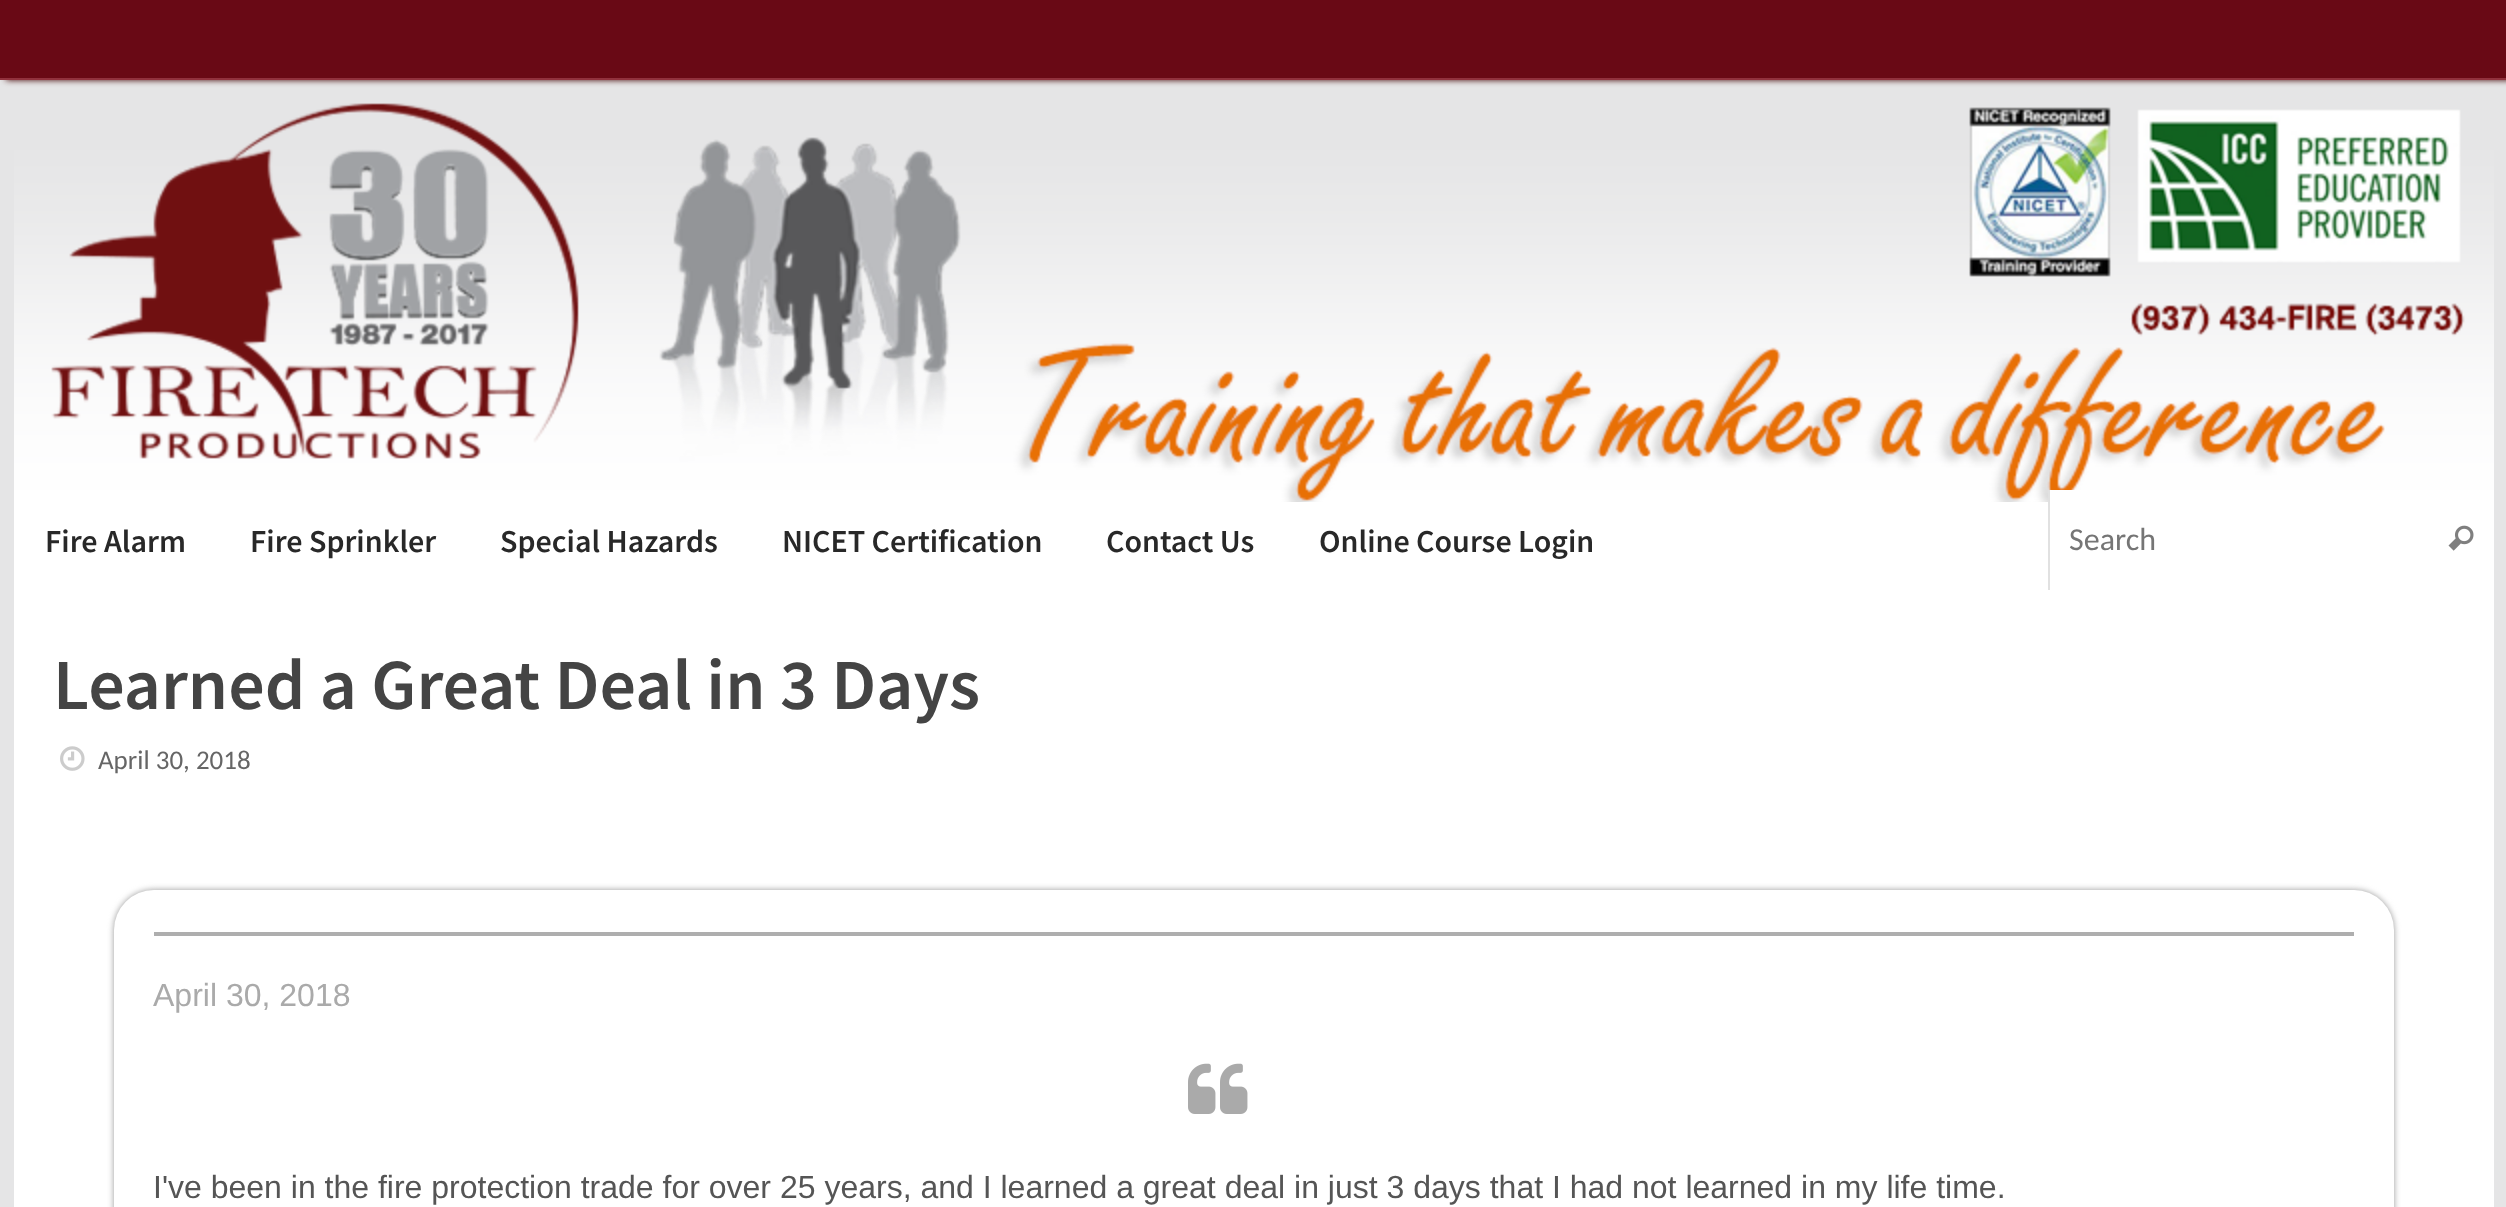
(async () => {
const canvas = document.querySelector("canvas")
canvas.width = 2506
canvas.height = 1207
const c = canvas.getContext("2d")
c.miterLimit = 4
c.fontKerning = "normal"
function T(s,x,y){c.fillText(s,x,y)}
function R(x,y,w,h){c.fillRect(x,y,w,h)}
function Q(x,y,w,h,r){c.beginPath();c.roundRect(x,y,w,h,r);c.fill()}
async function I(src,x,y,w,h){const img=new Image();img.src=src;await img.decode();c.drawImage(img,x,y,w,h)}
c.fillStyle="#e5e5e6"
R(0,0,2506,1207)
c.fillStyle="#410000"
c.filter="blur(3px)"
c.beginPath()
c.rect(6,0,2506,80)
c.fill()
c.filter="none"
c.fillStyle="#690915"
R(0,0,2506,78)
c.fillStyle="#91313d"
R(0,78,2506,2)
c.fillStyle="#fff"
R(14,490,2034,100)
await I("1.png",14,103,2480,399)
c.font="600 32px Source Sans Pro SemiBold"
c.fillStyle="#282828"
T("Fire Alarm",45,552)
T("Fire Sprinkler",250,552)
T("Special Hazards",500,552)
T("NICET Certification",782,552)
T("Contact Us",1106,552)
T("Online Course Login",1319,552)
c.fillStyle="#fff"
R(2050,490,444,100)
c.fillStyle="#e1e1e1"
R(2048,490,2,100)
c.font="32px Carlito"
c.fillStyle="#757575"
T("Search",2069,550)
await I("2.png",2448,525,26,26)
c.fillStyle="#fff"
R(14,590,2480,617)
c.font="600 72px Source Sans Pro SemiBold"
c.fillStyle="#444"
T("Learned a Great Deal in 3 Days",53,709)
await I("3.png",60,746,25,25)
c.font="27px Carlito"
c.fillStyle="#666"
T("April 30, 2018",98,769)
c.fillStyle="#999"
c.filter="blur(3px)"
c.beginPath()
c.roundRect(114,890,2280,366,40)
c.fill()
c.filter="none"
c.fillStyle="#fff"
Q(114,890,2280,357,40)
c.fillStyle="#aeaeae"
R(154,932,2200,4)
c.font="32px Liberation Sans"
c.fillStyle="#aaa"
T("April 30, 2018",153,1006)
await I("4.png",1188,1063,60,51)
c.fillStyle="#555"
T("I've been in the fire protection trade for over 25 years, and I learned a great deal in just 3 days that I had not learned in my life time.",153,1198)
})()
